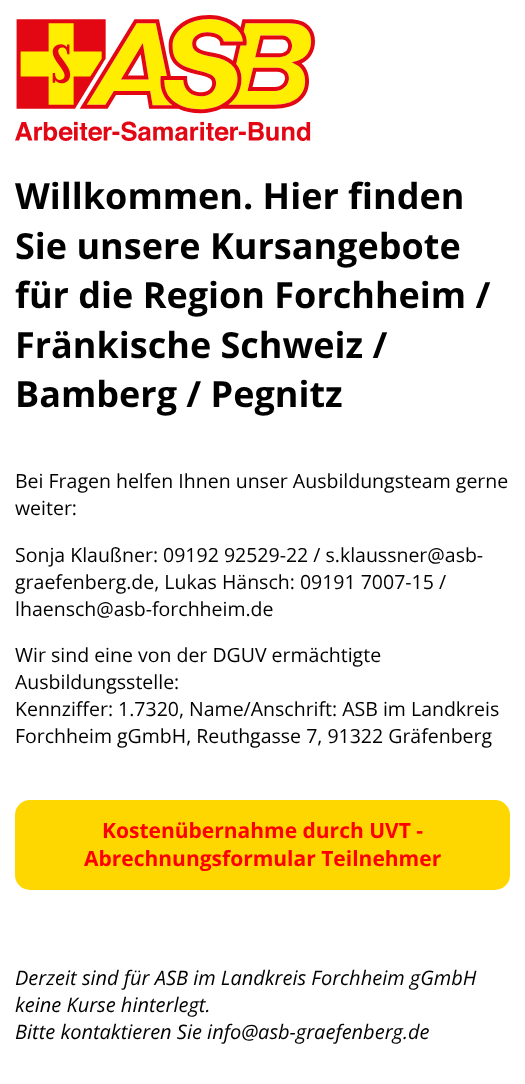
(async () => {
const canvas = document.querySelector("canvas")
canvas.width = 525
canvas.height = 1084
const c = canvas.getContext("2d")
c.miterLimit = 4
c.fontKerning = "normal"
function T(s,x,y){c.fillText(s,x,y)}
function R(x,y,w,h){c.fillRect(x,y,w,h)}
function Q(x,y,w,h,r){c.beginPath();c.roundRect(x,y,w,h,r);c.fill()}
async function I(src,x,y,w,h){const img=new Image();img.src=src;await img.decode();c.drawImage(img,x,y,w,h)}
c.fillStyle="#fff"
R(0,0,525,1084)
await I("1.png",15,15,300,126)
c.font="bold 36px Open Sans"
c.fillStyle="#000"
T("Willkommen. Hier finden",15,209)
T("Sie unsere Kursangebote",15,259)
T("für die Region Forchheim /",15,308)
T("Fränkische Schweiz /",15,358)
T("Bamberg / Pegnitz",15,407)
c.font="19.5px Open Sans"
T("Bei Fragen helfen Ihnen unser Ausbildungsteam gerne",15,488)
T("weiter:",15,515)
T("Sonja Klaußner: 09192 92529-22 / s.klaussner@asb-",15,562)
T("graefenberg.de, Lukas Hänsch: 09191 7007-15 /",15,589)
T("lhaensch@asb-forchheim.de",15,616)
T("Wir sind eine von der DGUV ermächtigte",15,662)
T("Ausbildungsstelle:",15,689)
T("Kennziffer: 1.7320, Name/Anschrift: ASB im Landkreis",15,716)
T("Forchheim gGmbH, Reuthgasse 7, 91322 Gräfenberg",15,743)
c.fillStyle="#ffd700"
Q(15,800,495,90,15)
c.font="bold 21px Open Sans"
c.fillStyle="#f00"
T("Kostenübernahme durch UVT -",102,838)
T("Abrechnungsformular Teilnehmer",84,866)
c.font="italic 20px Open Sans"
c.fillStyle="#000"
T("Derzeit sind für ASB im Landkreis Forchheim gGmbH",15,985)
T("keine Kurse hinterlegt.",15,1012)
T("Bitte kontaktieren Sie info@asb-graefenberg.de",15,1039)
})()
